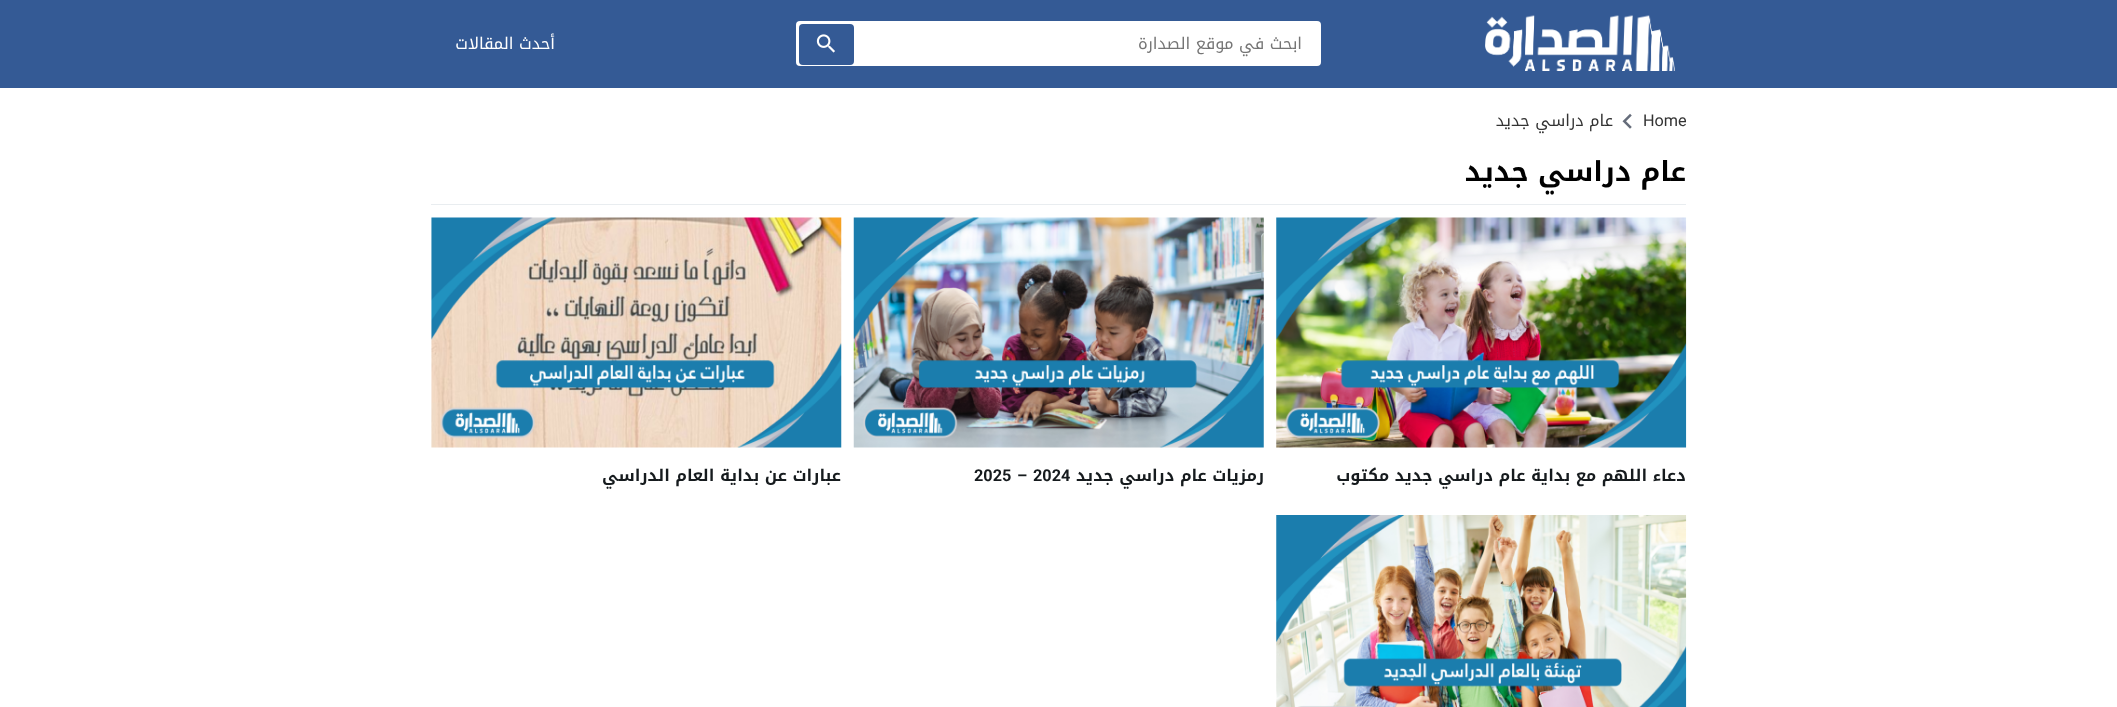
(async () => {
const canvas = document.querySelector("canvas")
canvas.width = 2117
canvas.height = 707
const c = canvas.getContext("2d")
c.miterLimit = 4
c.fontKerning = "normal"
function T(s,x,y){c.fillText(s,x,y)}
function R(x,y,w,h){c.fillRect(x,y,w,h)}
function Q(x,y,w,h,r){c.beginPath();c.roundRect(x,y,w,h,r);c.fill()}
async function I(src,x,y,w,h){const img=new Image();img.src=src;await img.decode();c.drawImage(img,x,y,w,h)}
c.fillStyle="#fff"
R(0,0,2117,707)
c.fillStyle="#345a95"
R(0,0,2117,88)
await I("1.png",1485,15,190,56)
c.fillStyle="#fff"
Q(796,21,525,45,4)
c.direction="rtl"
c.font="16.25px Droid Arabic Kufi"
c.fillStyle="#757575"
T("ابحث في موقع الصدارة",1302,49)
c.fillStyle="#345a95"
Q(799,24,55,41,4)
await I("2.png",816,34,19,19)
c.fillStyle="#fff"
T("أحدث المقالات",555,49)
c.direction="ltr"
c.font="16.25px Roboto"
c.fillStyle="#333"
T("Home",1643,126)
await I("3.png",1622,113,10,16)
c.direction="rtl"
c.font="16.25px Droid Arabic Kufi"
T("عام دراسي جديد",1613,126)
c.fillStyle="#e9edf0"
R(431,204,1255,1)
c.font="bold 27.5px Droid Arabic Kufi"
c.fillStyle="#000"
T("عام دراسي جديد",1686,181)
await I("4.png",1276,217,411,231)
c.font="bold 16.25px Droid Arabic Kufi"
c.fillStyle="#161b1e"
T("دعاء اللهم مع بداية عام دراسي جديد مكتوب",1686,481)
await I("5.png",853,217,411,231)
T("رمزيات عام دراسي جديد",1264,481)
c.direction="ltr"
c.font="bold 16.25px Roboto"
T("2024",1033,481)
T("–",1017,481)
T("2025",974,481)
await I("6.png",431,217,411,231)
c.direction="rtl"
c.font="bold 16.25px Droid Arabic Kufi"
T("عبارات عن بداية العام الدراسي",841,481)
await I("7.png",1276,515,411,192)
})()
